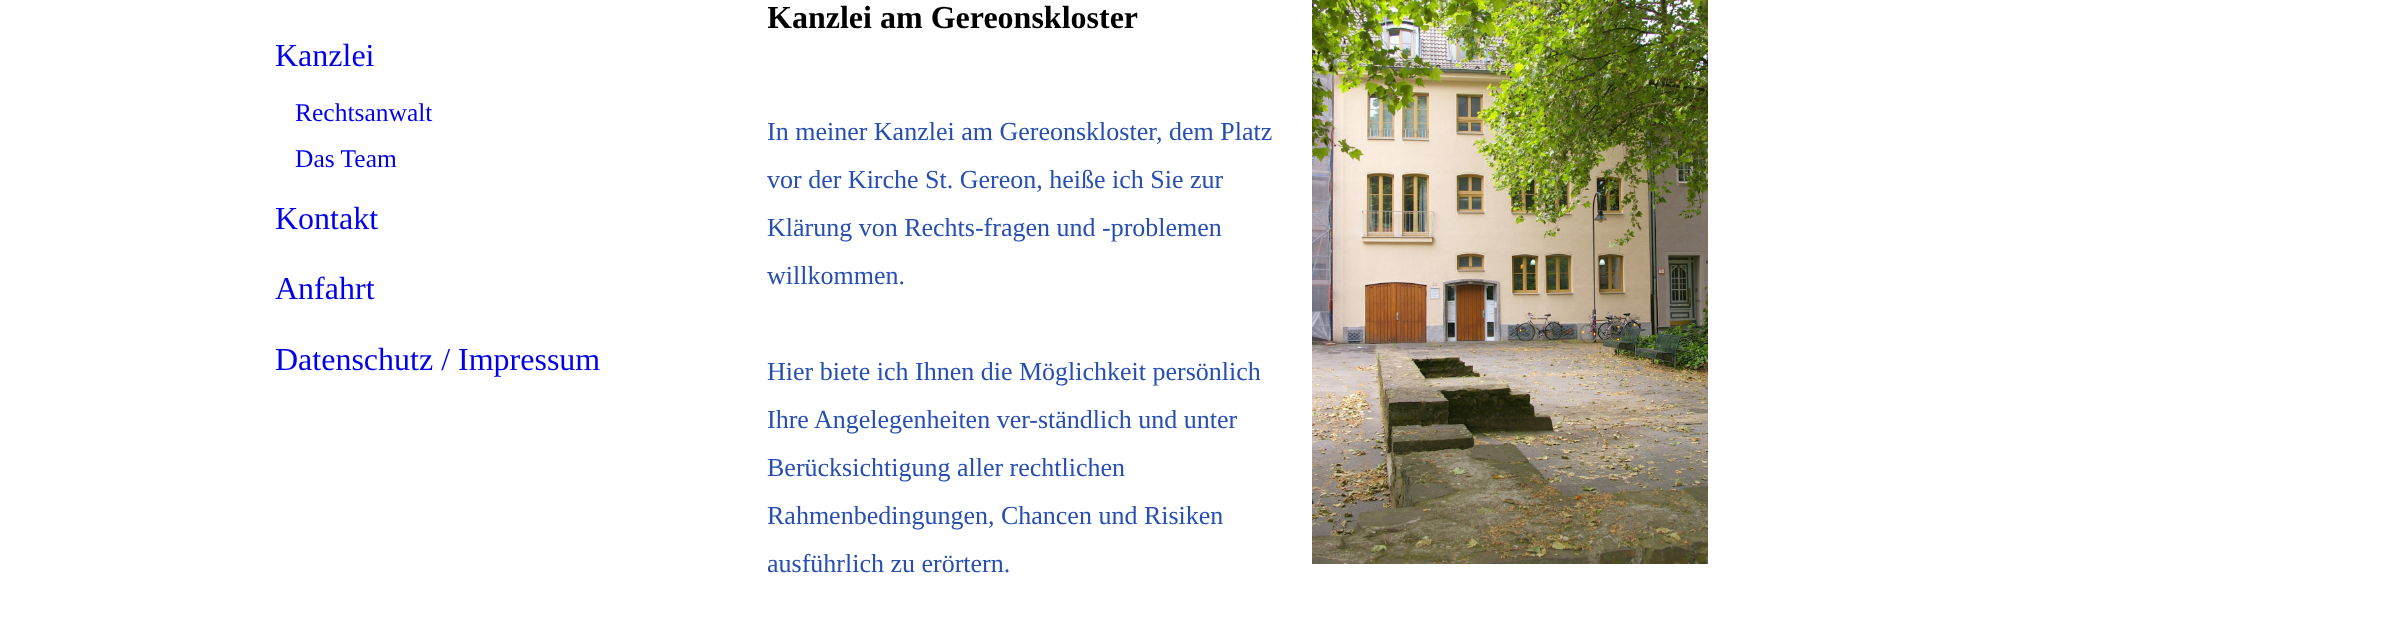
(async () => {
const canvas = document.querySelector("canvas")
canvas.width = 2407
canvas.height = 630
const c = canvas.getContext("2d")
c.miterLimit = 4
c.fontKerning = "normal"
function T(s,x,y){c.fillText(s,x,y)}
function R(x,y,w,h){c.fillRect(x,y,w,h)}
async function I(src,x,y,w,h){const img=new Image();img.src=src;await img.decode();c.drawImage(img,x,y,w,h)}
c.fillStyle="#fff"
R(0,0,2407,630)
c.font="32px Liberation Serif"
c.fillStyle="#00e"
T("Kanzlei",275,66)
c.font="25.5px Liberation Serif"
T("Rechtsanwalt",295,121)
T("Das Team",295,167)
c.font="32px Liberation Serif"
T("Kontakt",275,229)
T("Anfahrt",275,299)
T("Datenschutz / Impressum",275,370)
c.save()
c.beginPath()
c.rect(768,0,940,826)
c.clip()
c.font="bold 32px Liberation Serif"
c.fillStyle="#000"
T("Kanzlei",767,28)
c.restore()
c.font="bold 32px Liberation Serif"
c.fillStyle="#000"
T("am Gereonskloster",880,28)
await I("1.png",1312,0,396,564)
c.font="26px Liberation Serif"
c.fillStyle="#264eb3"
T("In meiner Kanzlei am Gereonskloster",767,140)
T(", dem Platz",1156,140)
T("vor der Kirche St. Gereon, heiße ich Sie zur",767,188)
T("Klärung von Rechts-fragen und -problemen",767,236)
T("willkommen.",767,284)
T("Hier biete ich Ihnen die Möglichkeit persönlich",767,380)
T("Ihre",767,428)
T("Angelegenheiten ver-ständlich und unter",814,428)
T("Berücksichtigung aller rechtlichen",767,476)
T("Rahmenbedingungen, Chancen und Risiken",767,524)
T("ausführlich zu erörtern.",767,572)
})()
